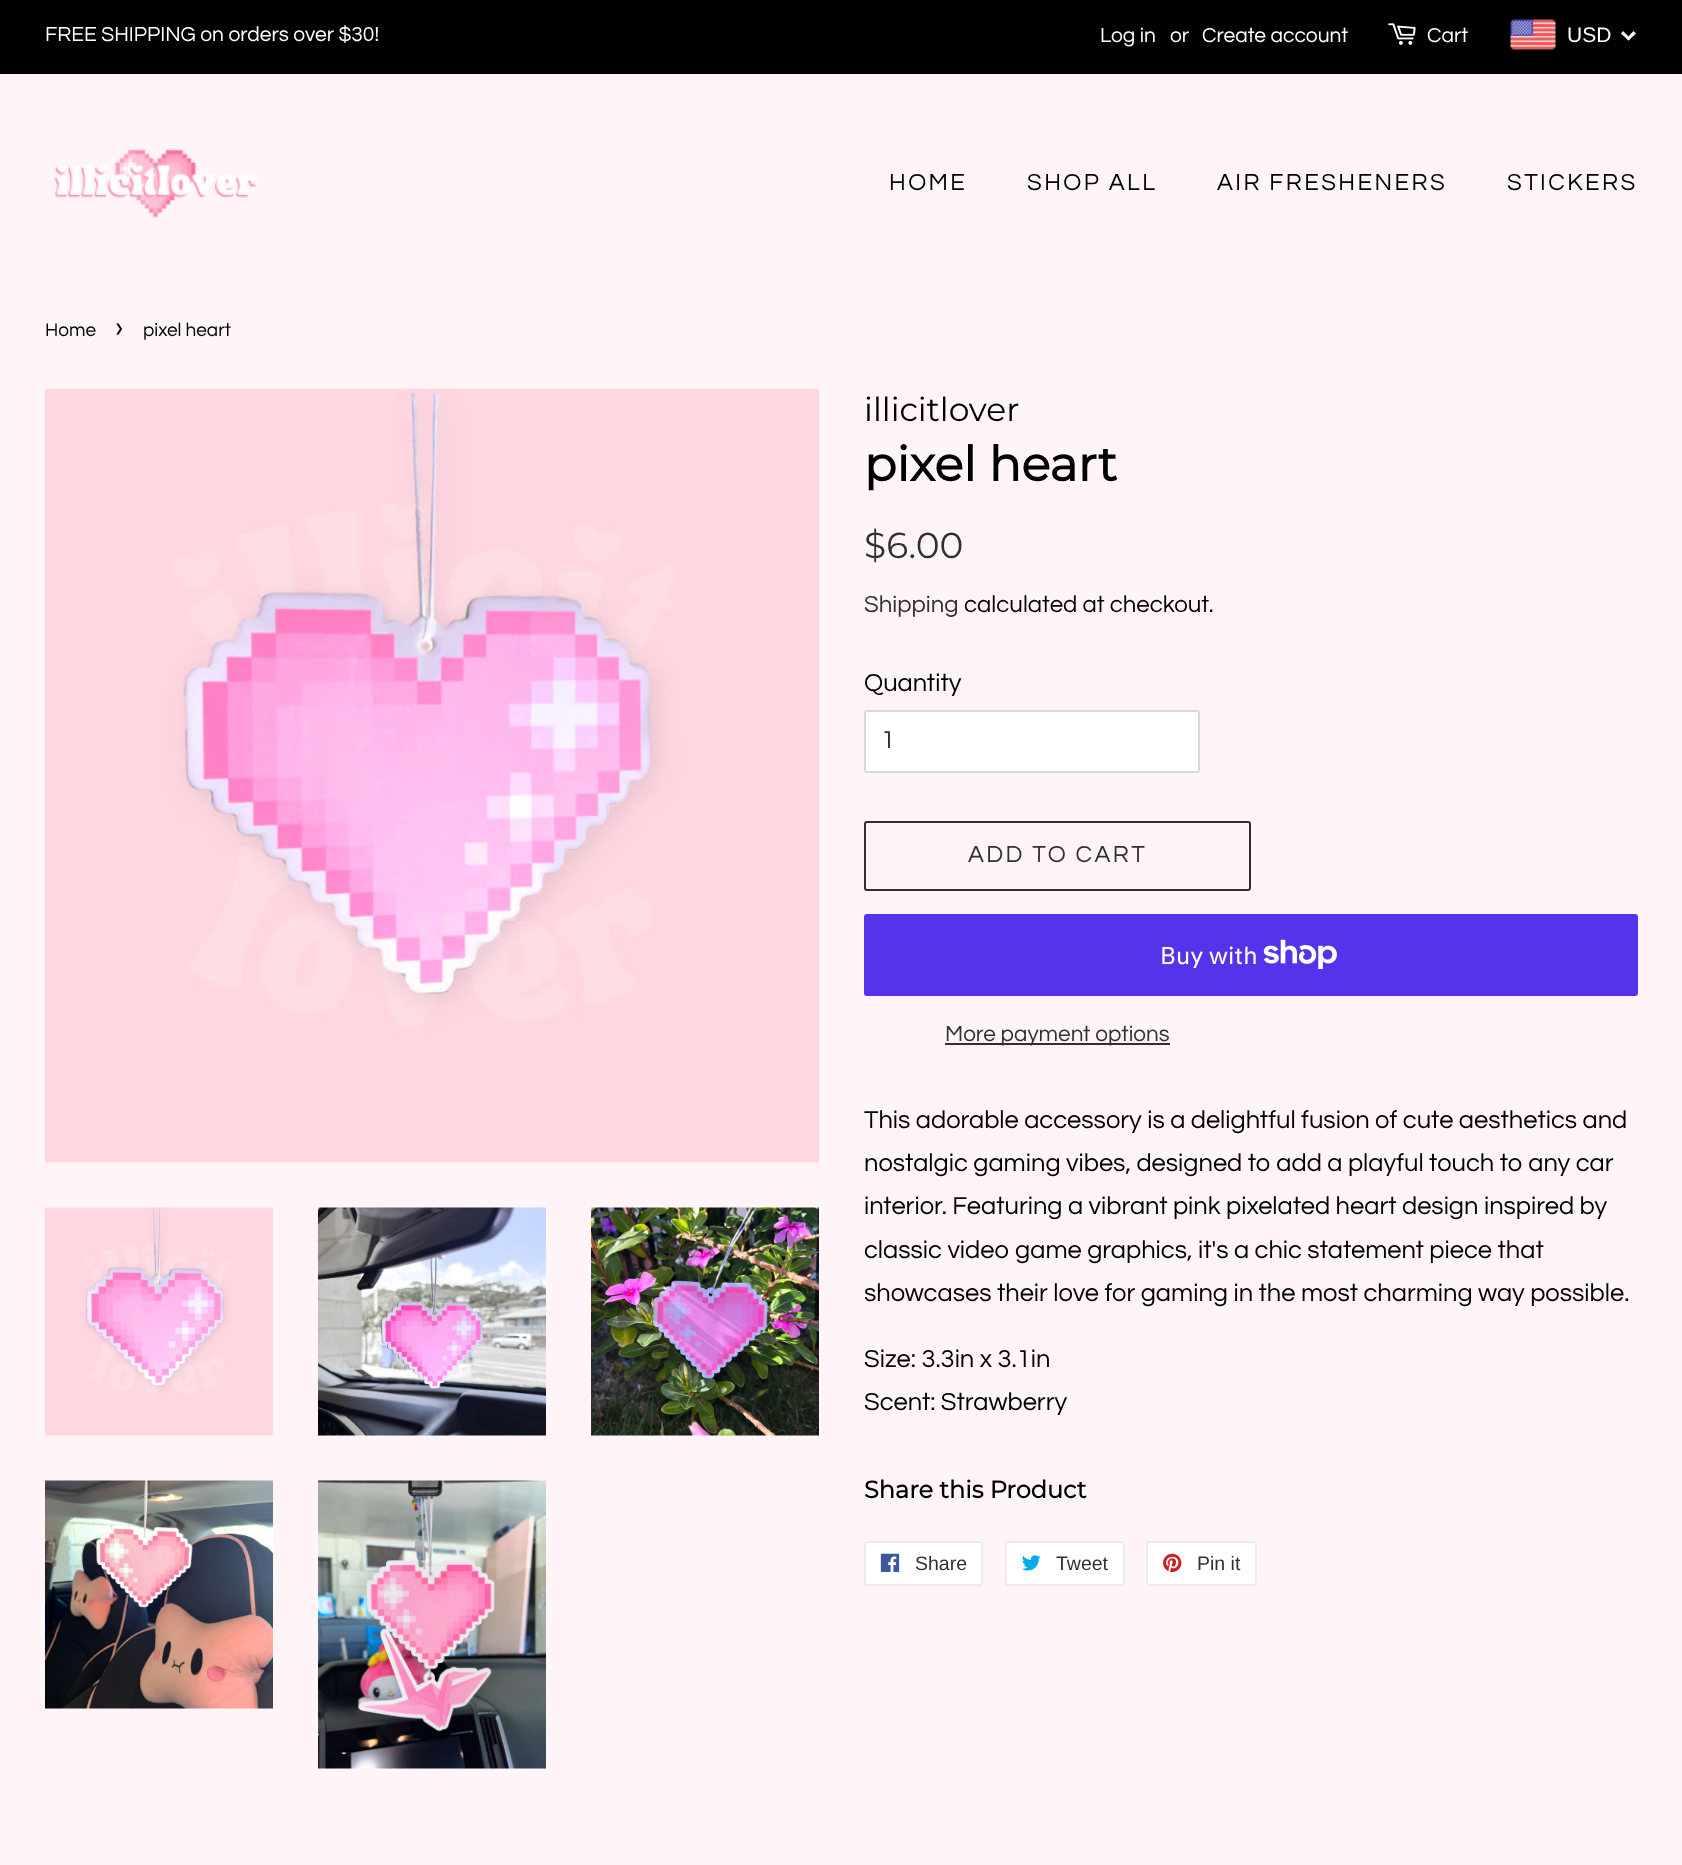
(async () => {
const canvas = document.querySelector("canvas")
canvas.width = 1682
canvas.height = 1865
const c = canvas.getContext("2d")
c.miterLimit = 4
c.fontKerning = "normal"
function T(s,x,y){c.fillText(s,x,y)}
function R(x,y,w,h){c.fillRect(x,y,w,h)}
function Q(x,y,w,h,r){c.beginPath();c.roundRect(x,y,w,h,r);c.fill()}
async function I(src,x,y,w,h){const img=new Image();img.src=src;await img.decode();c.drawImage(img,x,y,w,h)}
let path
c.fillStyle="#fff5f9"
R(0,0,1682,1865)
c.fillStyle="#000"
R(0,0,1682,74)
c.font="21px Questrial"
c.fillStyle="#fff"
T("FREE SHIPPING on orders over $30!",45,41)
T("Log in",1100,42)
T("or",1170,42)
T("Create account",1202,42)
await I("1.png",1388,23,28,22)
T("Cart",1427,42)
await I("2.png",1510,19,46,31)
c.font="21px Liberation Sans"
T("USD",1567,42)
path = new Path2D("M1633.5 31l2.5 2.5l-7.5 7l-2-2z")
c.fill(path)
path = new Path2D("M1623 31l7.5 7.5l-2 2l-7.5-7z")
c.fill(path)
await I("3.png",54,149,205,69)
c.letterSpacing="2.4px"
c.font="24px Questrial"
c.fillStyle="#000"
T("HOME",889,190)
T("SHOP ALL",1027,190)
T("AIR FRESHENERS",1217,190)
T("STICKERS",1507,190)
c.letterSpacing="0px"
c.font="19px Questrial"
T("Home",45,336)
c.font="27px Questrial"
T("›",115,336)
c.font="19px Questrial"
T("pixel heart",143,336)
await I("4.png",45,388,774,775)
await I("5.png",45,1207,228,229)
await I("6.png",318,1207,228,229)
await I("7.png",591,1207,228,229)
await I("8.png",45,1480,228,229)
await I("9.png",318,1480,228,289)
c.font="33px Montserrat"
T("illicitlover",864,421)
c.font="bold 48px Montserrat"
T("pixel heart",864,481)
c.font="36px Montserrat"
c.fillStyle="#303030"
T("$6.00",864,558)
c.font="24px Questrial"
T("Shipping",864,612)
c.fillStyle="#000"
T("calculated at checkout.",964,612)
c.font="25.5px Questrial"
T("Quantity",864,691)
c.fillStyle="#fff"
Q(864,710,336,63,3)
c.beginPath()
c.roundRect(865,711,334,61,2)
c.strokeStyle="#00000026"
c.lineWidth=2
c.stroke()
c.fillStyle="#303030"
T("1",881,748)
c.beginPath()
c.roundRect(865,822,385,68,2)
c.strokeStyle="#303030"
c.stroke()
c.letterSpacing="2.4px"
c.font="24px Questrial"
T("ADD TO CART",968,862)
c.fillStyle="#5433eb"
Q(864,914,774,82,3)
c.letterSpacing="0px"
c.font="24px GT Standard"
c.fillStyle="#fff"
T("Buy with",1160,964)
await I("10.png",1263,939,74,30)
c.fillStyle="#303030"
R(945,1043,225,2)
c.font="22.5px Questrial"
T("More payment options",945,1041)
c.font="25.5px Questrial"
c.fillStyle="#000"
T("This adorable accessory is a delightful fusion of cute aesthetics and",864,1128)
T("nostalgic gaming vibes, designed to add a playful touch to any car",864,1171)
T("interior. Featuring a vibrant pink pixelated heart design inspired by",864,1214)
T("classic video game graphics, it's a chic statement piece that",864,1258)
T("showcases their love for gaming in the most charming way possible.",864,1301)
T("Size: 3.3in x 3.1in",864,1367)
T("Scent: Strawberry",864,1410)
c.font="bold 24px Montserrat"
T("Share this Product",864,1498)
c.fillStyle="#fff"
c.beginPath()
c.roundRect(865,1542,117,43,2)
c.fill()
c.strokeStyle="#ececec"
c.stroke()
await I("11.png",880,1553,20,19)
c.font="19.5px Liberation Sans"
c.fillStyle="#303030"
T("Share",915,1570)
c.fillStyle="#fff"
c.beginPath()
c.roundRect(1006,1542,118,43,2)
c.fill()
c.stroke()
await I("12.png",1022,1555,19,16)
c.fillStyle="#303030"
T("Tweet",1056,1570)
c.fillStyle="#fff"
c.beginPath()
c.roundRect(1147,1542,109,43,2)
c.fill()
c.stroke()
await I("13.png",1163,1553,19,19)
c.fillStyle="#303030"
T("Pin it",1197,1570)
})()
